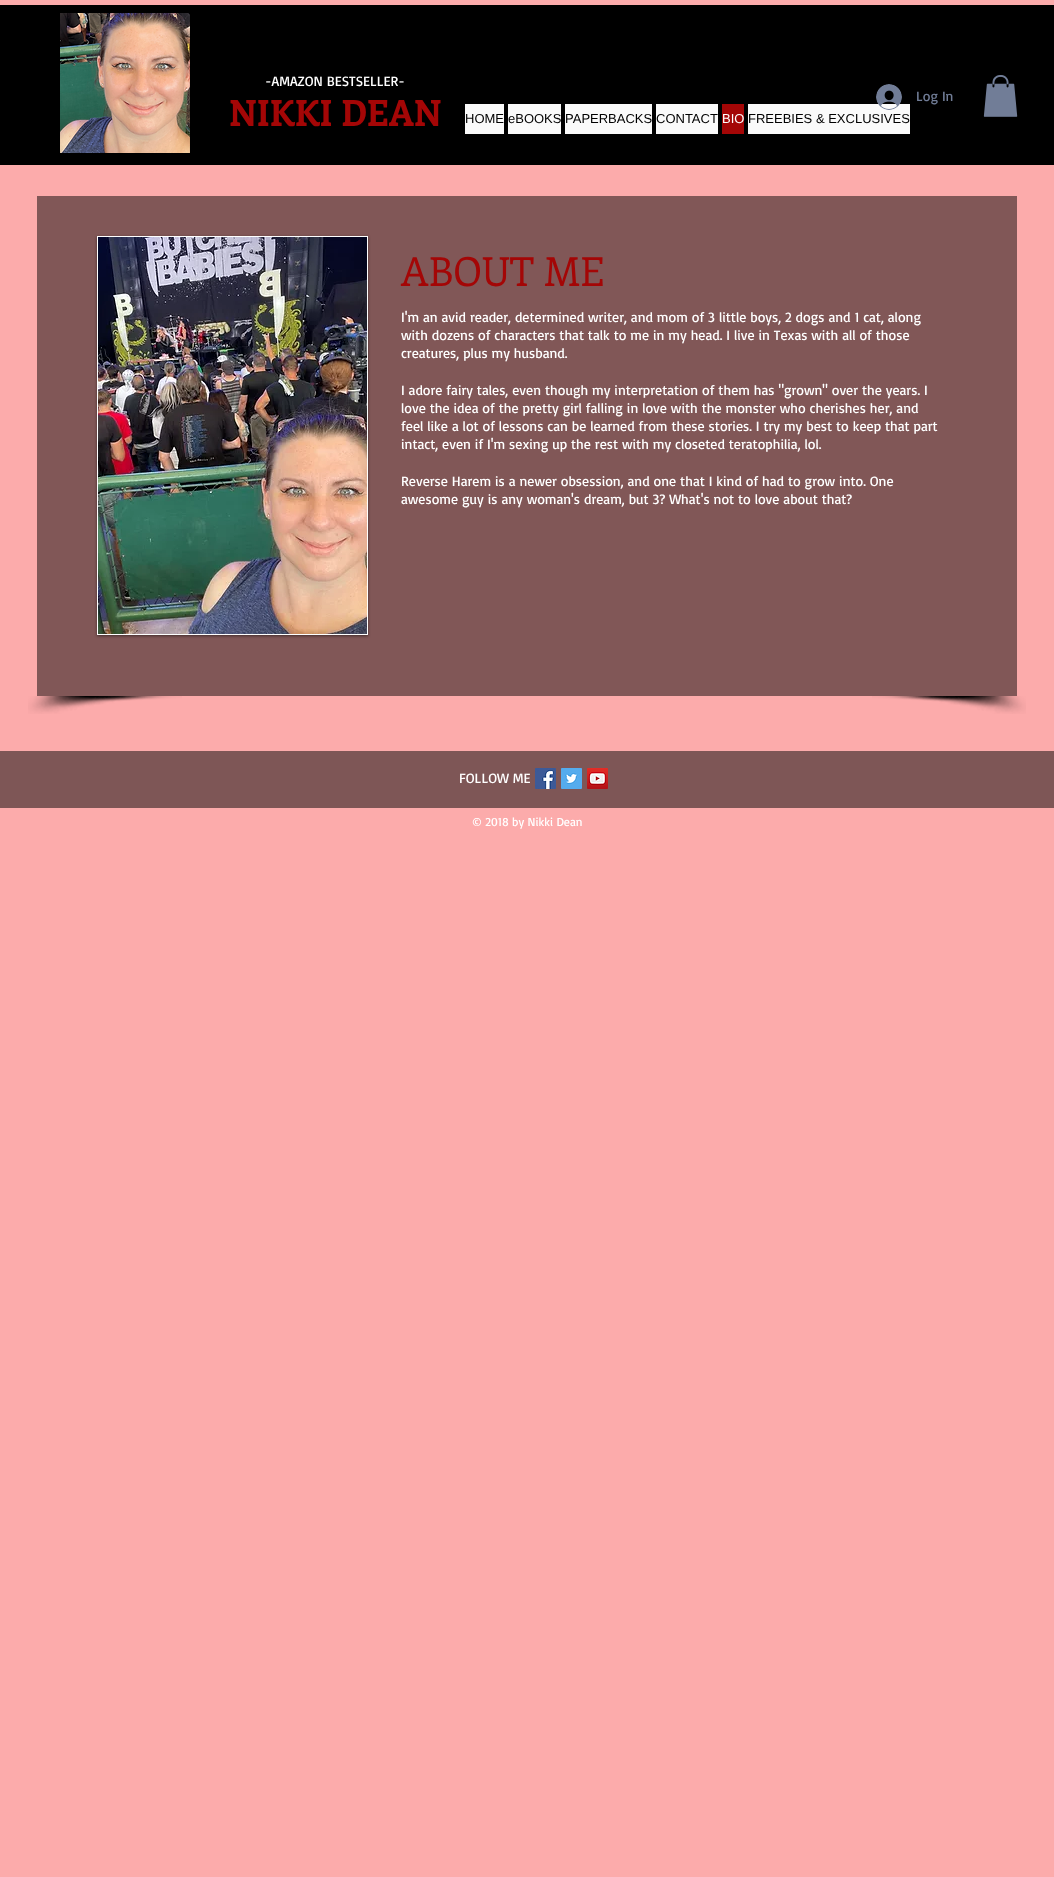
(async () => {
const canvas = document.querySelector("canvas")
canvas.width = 1054
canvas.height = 1877
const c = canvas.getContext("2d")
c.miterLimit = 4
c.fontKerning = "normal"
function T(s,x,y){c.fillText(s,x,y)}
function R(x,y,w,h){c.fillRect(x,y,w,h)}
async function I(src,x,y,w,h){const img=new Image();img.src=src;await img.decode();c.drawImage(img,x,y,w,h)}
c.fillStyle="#fcabab"
R(0,0,1054,1877)
c.fillStyle="#000"
R(0,5,1054,160)
await I("1.png",60,13,130,140)
c.font="14px Basic"
c.fillStyle="#fff"
T("-AMAZON BESTSELLER-",265,86)
c.font="bold 36px Enriqueta"
c.fillStyle="#a40606"
T("NIKKI DEAN",229,126)
c.fillStyle="#fafafa"
R(465,104,39,30)
c.font="13px Liberation Sans"
c.fillStyle="#000"
T("HOME",465,123)
c.fillStyle="#fafafa"
R(508,104,53,30)
c.fillStyle="#000"
T("eBOOKS",508,123)
c.fillStyle="#fafafa"
R(565,104,87,30)
c.fillStyle="#000"
T("PAPERBACKS",565,123)
c.fillStyle="#fafafa"
R(656,104,62,30)
c.fillStyle="#000"
T("CONTACT",656,123)
c.fillStyle="#a40606"
R(722,104,22,30)
c.fillStyle="#fff"
T("BIO",722,123)
c.fillStyle="#fafafa"
R(748,104,162,30)
c.fillStyle="#000"
T("FREEBIES & EXCLUSIVES",748,123)
await I("2.png",876,84,26,26)
c.font="14px Basic"
c.fillStyle="#717d97"
T("Log In",916,101)
await I("3.png",983,75,35,42)
c.fillStyle="#815757"
R(37,196,980,500)
await I("4.png",28,696,154,18)
await I("5.png",872,696,154,18)
c.fillStyle="#00000080"
c.filter="blur(1.5px)"
c.beginPath()
c.rect(97,237,271,399)
c.fill()
c.filter="none"
c.fillStyle="#fff"
R(97,236,271,399)
await I("6.png",98,237,269,397)
c.font="40px Enriqueta"
c.fillStyle="#a40606"
T("ABOUT ME",401,286)
c.font="14px Basic"
c.fillStyle="#fff"
T("I'm an avid reader, determined writer, and mom of 3 little boys, 2 dogs and 1 cat, along",401,322)
T("with dozens of characters that talk to me in my head. I live in Texas with all of those",401,340)
T("creatures, plus my husband.",401,358)
T("I adore fairy tales, even though my interpretation of them has \"grown\" over the years. I",401,395)
T("love the idea of the pretty girl falling in love with the monster who cherishes her, and",401,413)
T("feel like a lot of lessons can be learned from these stories. I try my best to keep that part",401,431)
T("intact, even if I'm sexing up the rest with my closeted teratophilia, lol.",401,449)
T("Reverse Harem is a newer obsession, and one that I kind of had to grow into. One",401,486)
T("awesome guy is any woman's dream, but 3? What's not to love about that?",401,504)
c.fillStyle="#7e5656"
R(0,751,1054,57)
c.fillStyle="#fff"
T("FOLLOW ME",459,783)
await I("7.png",535,768,21,21)
await I("8.png",561,768,21,21)
await I("9.png",587,768,21,21)
c.font="12px Basic"
T("© 2018 by Nikki Dean",472,826)
})()
